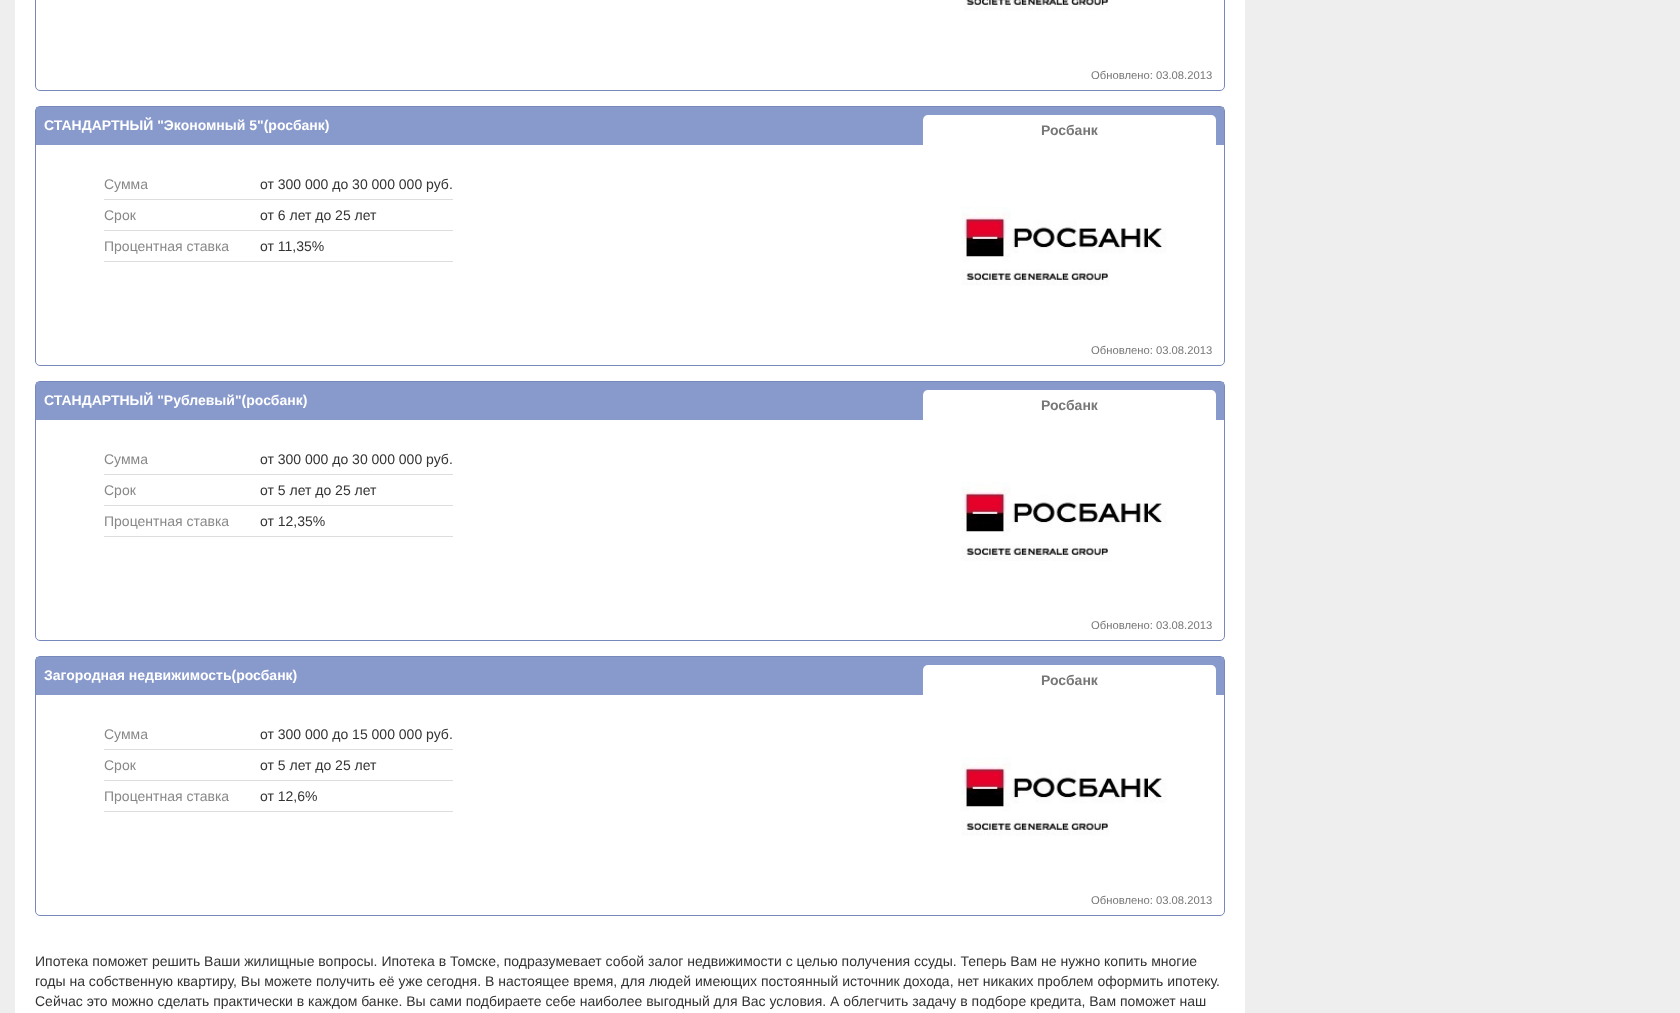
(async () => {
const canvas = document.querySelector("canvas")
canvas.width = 1680
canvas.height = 1013
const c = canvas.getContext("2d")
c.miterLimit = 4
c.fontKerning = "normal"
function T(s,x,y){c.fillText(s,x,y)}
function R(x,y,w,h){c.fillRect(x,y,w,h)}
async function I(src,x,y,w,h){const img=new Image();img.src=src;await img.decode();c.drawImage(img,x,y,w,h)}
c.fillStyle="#eee"
R(0,0,1680,1013)
c.fillStyle="#fff"
R(15,0,1230,1013)
c.beginPath()
c.roundRect(35.5,-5.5,1189,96,4.5)
c.strokeStyle="#78b"
c.stroke()
await I("1.png",964,0,145,11)
c.font="11.25px Liberation Sans"
c.fillStyle="#777"
T("Обновлено: 03.08.2013",1091,79)
c.beginPath()
c.roundRect(35.5,106.5,1189,259,4.5)
c.stroke()
c.fillStyle="#89c"
R(36,107,1188,38)
c.font="bold 14px Liberation Sans"
c.fillStyle="#fff"
T("СТАНДАРТНЫЙ \"Экономный 5\"(росбанк)",44,130)
c.beginPath()
c.roundRect(923,115,293,30,[5,5,0,0])
c.fill()
c.fillStyle="#777"
T("Росбанк",1041,135)
c.fillStyle="#ddd"
R(104,199,349,1)
c.font="14px Liberation Sans"
c.fillStyle="#888"
T("Сумма",104,189)
c.fillStyle="#333"
T("от 300 000 до 30 000 000 руб.",260,189)
c.fillStyle="#ddd"
R(104,230,349,1)
c.fillStyle="#888"
T("Срок",104,220)
c.fillStyle="#333"
T("от 6 лет до 25 лет",260,220)
c.fillStyle="#ddd"
R(104,261,349,1)
c.fillStyle="#888"
T("Процентная ставка",104,251)
c.fillStyle="#333"
T("от 11,35%",260,251)
await I("2.png",961,207,206,79)
c.font="11.25px Liberation Sans"
c.fillStyle="#777"
T("Обновлено: 03.08.2013",1091,354)
c.beginPath()
c.roundRect(35.5,381.5,1189,259,4.5)
c.stroke()
c.fillStyle="#89c"
R(36,382,1188,38)
c.font="bold 14px Liberation Sans"
c.fillStyle="#fff"
T("СТАНДАРТНЫЙ \"Рублевый\"(росбанк)",44,405)
c.beginPath()
c.roundRect(923,390,293,30,[5,5,0,0])
c.fill()
c.fillStyle="#777"
T("Росбанк",1041,410)
c.fillStyle="#ddd"
R(104,474,349,1)
c.font="14px Liberation Sans"
c.fillStyle="#888"
T("Сумма",104,464)
c.fillStyle="#333"
T("от 300 000 до 30 000 000 руб.",260,464)
c.fillStyle="#ddd"
R(104,505,349,1)
c.fillStyle="#888"
T("Срок",104,495)
c.fillStyle="#333"
T("от 5 лет до 25 лет",260,495)
c.fillStyle="#ddd"
R(104,536,349,1)
c.fillStyle="#888"
T("Процентная ставка",104,526)
c.fillStyle="#333"
T("от 12,35%",260,526)
await I("3.png",961,482,206,79)
c.font="11.25px Liberation Sans"
c.fillStyle="#777"
T("Обновлено: 03.08.2013",1091,629)
c.beginPath()
c.roundRect(35.5,656.5,1189,259,4.5)
c.stroke()
c.fillStyle="#89c"
R(36,657,1188,38)
c.font="bold 14px Liberation Sans"
c.fillStyle="#fff"
T("Загородная недвижимость(росбанк)",44,680)
c.beginPath()
c.roundRect(923,665,293,30,[5,5,0,0])
c.fill()
c.fillStyle="#777"
T("Росбанк",1041,685)
c.fillStyle="#ddd"
R(104,749,349,1)
c.font="14px Liberation Sans"
c.fillStyle="#888"
T("Сумма",104,739)
c.fillStyle="#333"
T("от 300 000 до 15 000 000 руб.",260,739)
c.fillStyle="#ddd"
R(104,780,349,1)
c.fillStyle="#888"
T("Срок",104,770)
c.fillStyle="#333"
T("от 5 лет до 25 лет",260,770)
c.fillStyle="#ddd"
R(104,811,349,1)
c.fillStyle="#888"
T("Процентная ставка",104,801)
c.fillStyle="#333"
T("от 12,6%",260,801)
await I("4.png",961,757,206,79)
c.font="11.25px Liberation Sans"
c.fillStyle="#777"
T("Обновлено: 03.08.2013",1091,904)
c.font="14px Liberation Sans"
c.fillStyle="#333"
T("Ипотека поможет решить Ваши жилищные вопросы. Ипотека в Томске, подразумевает собой залог недвижимости с целью получения ссуды. Теперь Вам не нужно копить многие",35,966)
T("годы на собственную квартиру, Вы можете получить её уже сегодня. В настоящее время, для людей имеющих постоянный источник дохода, нет никаких проблем оформить ипотеку.",35,986)
T("Сейчас это можно сделать практически в каждом банке. Вы сами подбираете себе наиболее выгодный для Вас условия. А облегчить задачу в подборе кредита, Вам поможет наш",35,1006)
})()
